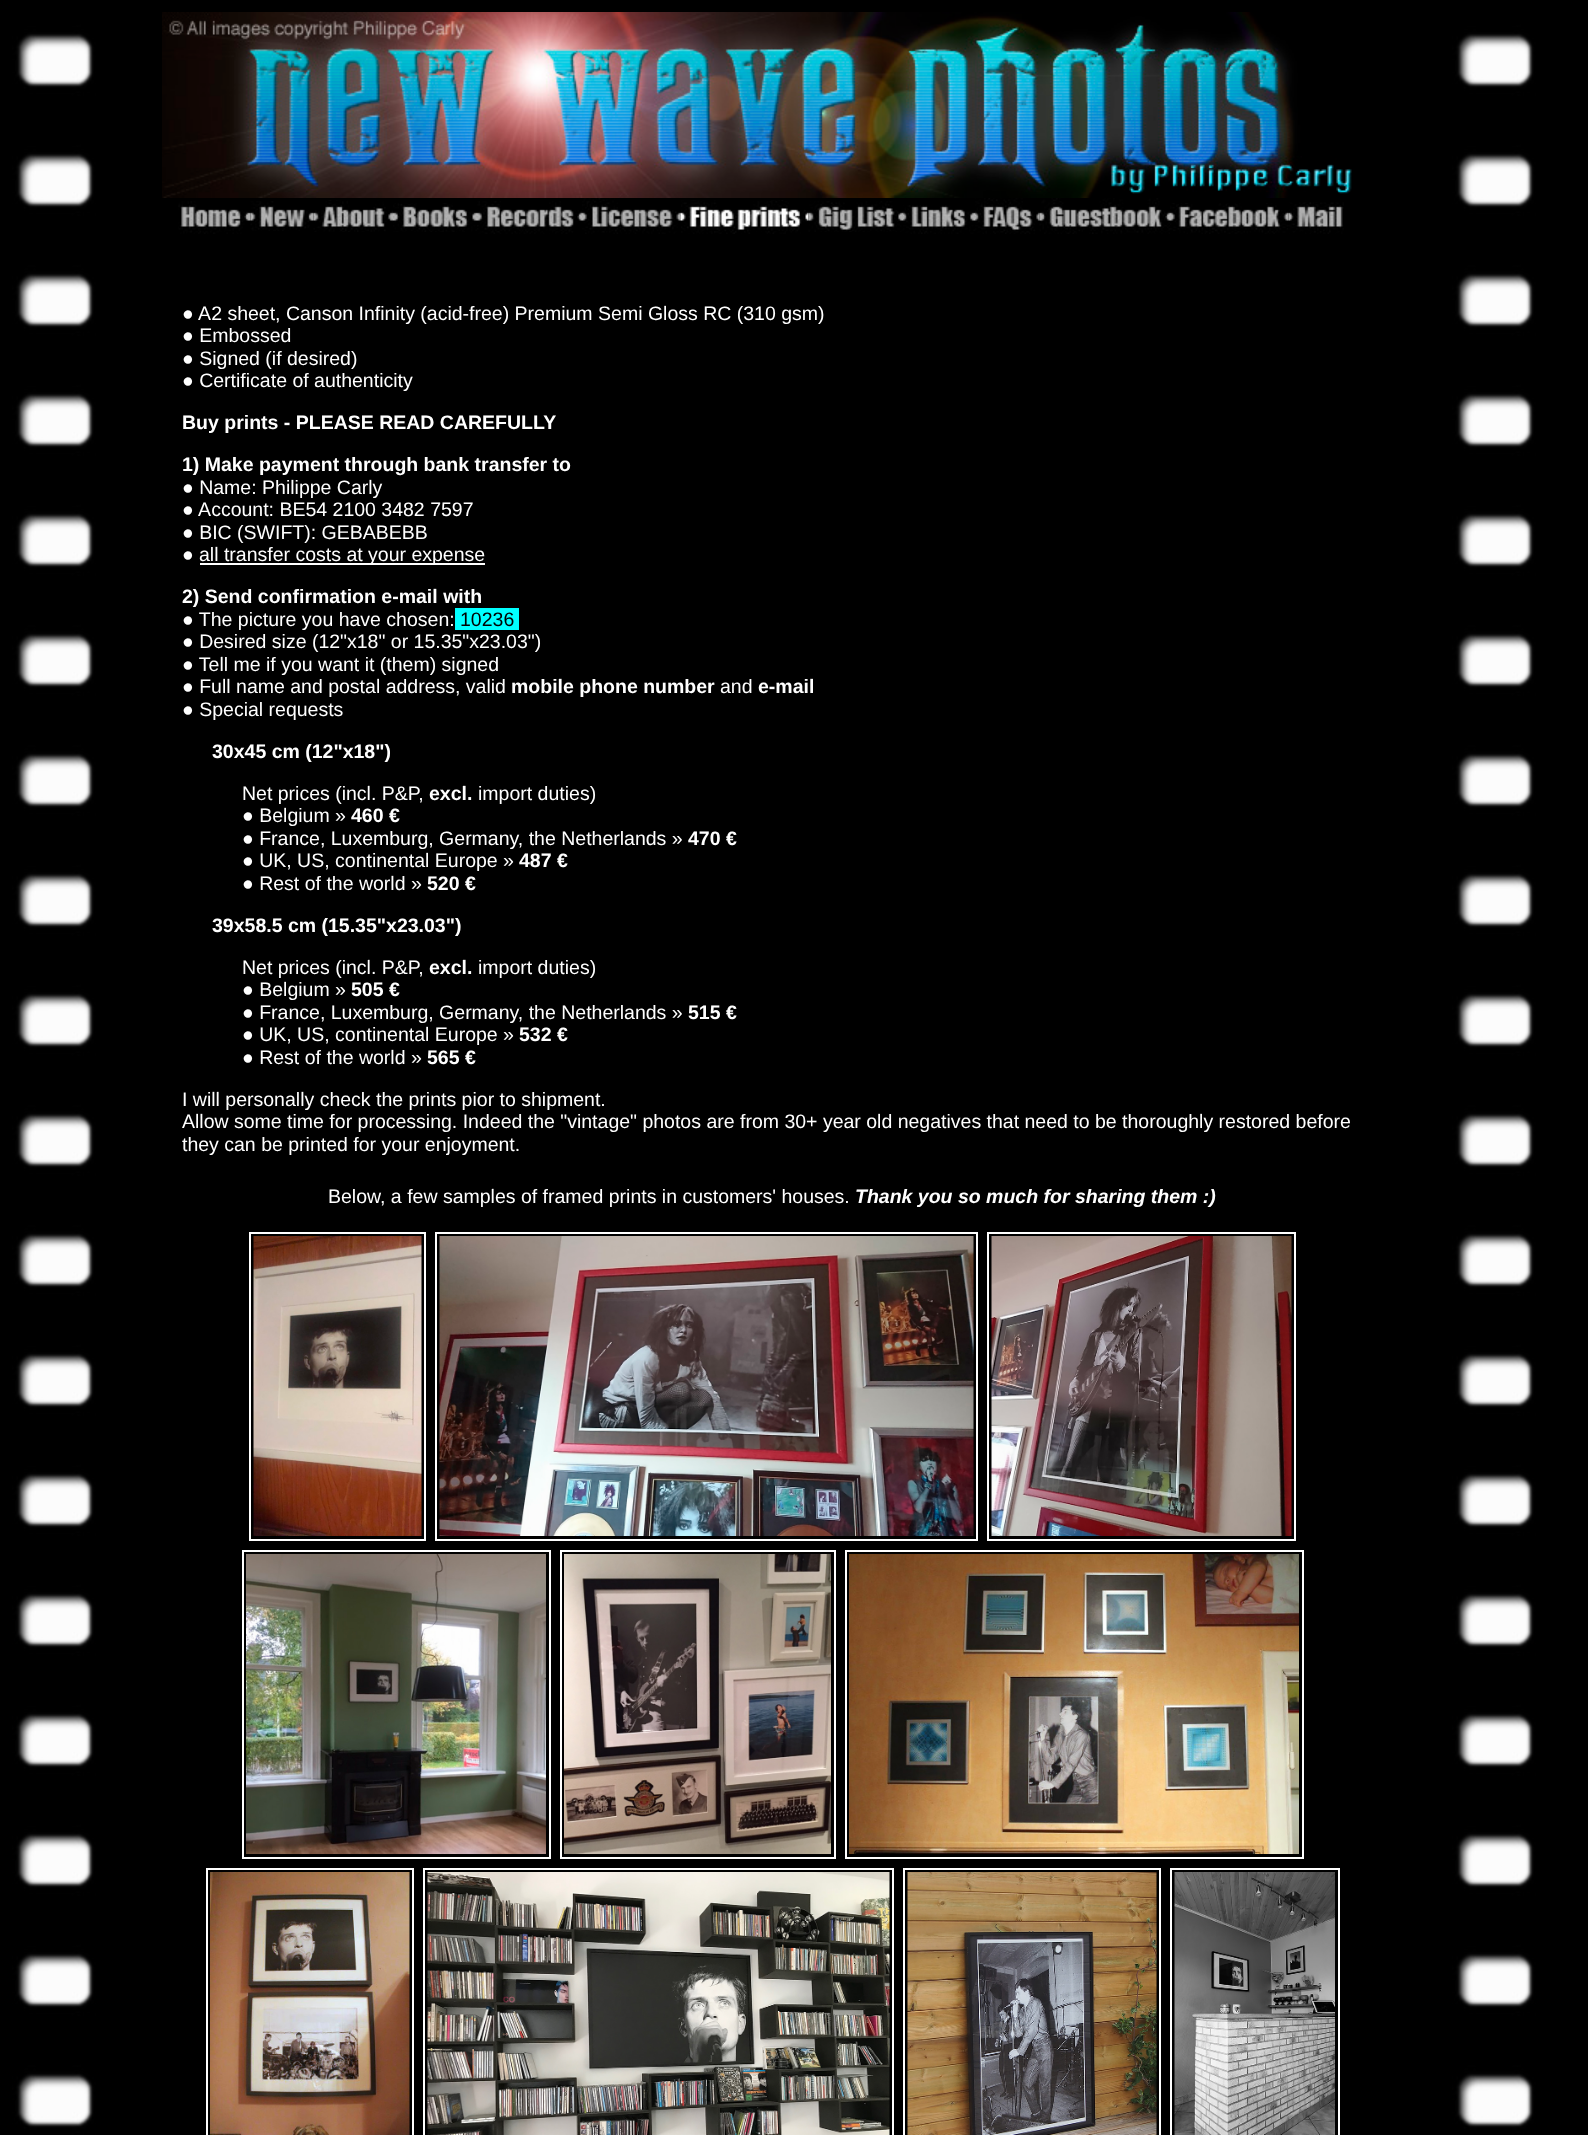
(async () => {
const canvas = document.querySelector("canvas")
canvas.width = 1588
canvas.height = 2135
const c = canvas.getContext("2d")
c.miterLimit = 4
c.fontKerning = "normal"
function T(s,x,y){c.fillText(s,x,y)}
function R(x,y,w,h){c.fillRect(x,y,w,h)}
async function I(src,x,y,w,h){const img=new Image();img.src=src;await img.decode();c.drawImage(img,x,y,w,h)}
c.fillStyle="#fff"
R(0,0,1588,2135)
await I("1.png",0,0,1588,2135)
await I("2.png",162,12,1190,186)
await I("3.png",178,201,73,33)
await I("4.png",250,201,64,30)
await I("5.png",313,200,80,32)
await I("6.png",393,203,84,29)
await I("7.png",477,201,105,33)
await I("8.png",582,198,99,36)
await I("9.png",681,200,128,34)
await I("10.png",808,201,95,31)
await I("11.png",903,205,72,29)
await I("12.png",975,198,65,36)
await I("13.png",1039,198,131,36)
await I("14.png",1170,203,119,31)
await I("15.png",1288,202,56,32)
c.font="19.5px Liberation Sans"
T("● A2 sheet, Canson Infinity (acid-free) Premium Semi Gloss RC (310 gsm)",182,320)
T("● Embossed",182,342)
T("● Signed (if desired)",182,365)
T("● Certificate of authenticity",182,387)
c.font="bold 19.5px Liberation Sans"
T("Buy prints - PLEASE READ CAREFULLY",182,429)
T("1) Make payment through bank transfer to",182,471)
c.font="19.5px Liberation Sans"
T("● Name: Philippe Carly",182,494)
T("● Account: BE54 2100 3482 7597",182,516)
T("● BIC (SWIFT): GEBABEBB",182,539)
T("●",182,561)
R(200,563,285,2)
T("all transfer costs at your expense",199,561)
c.font="bold 19.5px Liberation Sans"
T("2) Send confirmation e-mail with",182,603)
c.font="19.5px Liberation Sans"
T("● The picture you have chosen:",182,626)
c.fillStyle="#0ff"
R(455,608,64,22)
c.fillStyle="#000"
T("10236",460,626)
c.fillStyle="#fff"
T("● Desired size (12\"x18\" or 15.35\"x23.03\")",182,648)
T("● Tell me if you want it (them) signed",182,671)
T("● Full name and postal address, valid",182,693)
c.font="bold 19.5px Liberation Sans"
T("mobile phone number",511,693)
c.font="19.5px Liberation Sans"
T("and",720,693)
c.font="bold 19.5px Liberation Sans"
T("e-mail",758,693)
c.font="19.5px Liberation Sans"
T("● Special requests",182,716)
c.font="bold 19.5px Liberation Sans"
T("30x45 cm (12\"x18\")",212,758)
c.font="19.5px Liberation Sans"
T("Net prices (incl. P&P,",242,800)
c.font="bold 19.5px Liberation Sans"
T("excl.",429,800)
c.font="19.5px Liberation Sans"
T("import duties)",478,800)
T("● Belgium »",242,822)
c.font="bold 19.5px Liberation Sans"
T("460 €",351,822)
c.font="19.5px Liberation Sans"
T("● France, Luxemburg, Germany, the Netherlands »",242,845)
c.font="bold 19.5px Liberation Sans"
T("470 €",688,845)
c.font="19.5px Liberation Sans"
T("● UK, US, continental Europe »",242,867)
c.font="bold 19.5px Liberation Sans"
T("487 €",519,867)
c.font="19.5px Liberation Sans"
T("● Rest of the world »",242,890)
c.font="bold 19.5px Liberation Sans"
T("520 €",427,890)
T("39x58.5 cm (15.35\"x23.03\")",212,932)
c.font="19.5px Liberation Sans"
T("Net prices (incl. P&P,",242,974)
c.font="bold 19.5px Liberation Sans"
T("excl.",429,974)
c.font="19.5px Liberation Sans"
T("import duties)",478,974)
T("● Belgium »",242,996)
c.font="bold 19.5px Liberation Sans"
T("505 €",351,996)
c.font="19.5px Liberation Sans"
T("● France, Luxemburg, Germany, the Netherlands »",242,1019)
c.font="bold 19.5px Liberation Sans"
T("515 €",688,1019)
c.font="19.5px Liberation Sans"
T("● UK, US, continental Europe »",242,1041)
c.font="bold 19.5px Liberation Sans"
T("532 €",519,1041)
c.font="19.5px Liberation Sans"
T("● Rest of the world »",242,1064)
c.font="bold 19.5px Liberation Sans"
T("565 €",427,1064)
c.font="19.5px Liberation Sans"
T("I will personally check the prints pior to shipment.",182,1106)
T("Allow some time for processing. Indeed the \"vintage\" photos are from 30+ year old negatives that need to be thoroughly restored before",182,1128)
T("they can be printed for your enjoyment.",182,1151)
T("Below, a few samples of framed prints in customers' houses.",328,1203)
c.font="italic bold 19.5px Liberation Sans"
T("Thank you so much for sharing them :)",855,1203)
c.strokeStyle="#fff"
c.lineWidth=2
c.strokeRect(250,1233,175,307)
c.strokeRect(436,1233,541,307)
c.strokeRect(988,1233,307,307)
await I("16.png",253,1236,169,300)
await I("17.png",439,1236,535,300)
await I("18.png",991,1236,301,300)
c.strokeRect(243,1551,307,307)
c.strokeRect(561,1551,274,307)
c.strokeRect(846,1551,457,307)
await I("19.png",246,1554,300,300)
await I("20.png",564,1554,267,300)
await I("21.png",849,1554,450,300)
c.strokeRect(207,1869,206,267)
c.strokeRect(424,1869,469,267)
c.strokeRect(904,1869,256,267)
c.strokeRect(1171,1869,168,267)
await I("22.png",210,1872,200,263)
await I("23.png",427,1872,463,263)
await I("24.png",907,1872,250,263)
await I("25.png",1174,1872,161,263)
})()
